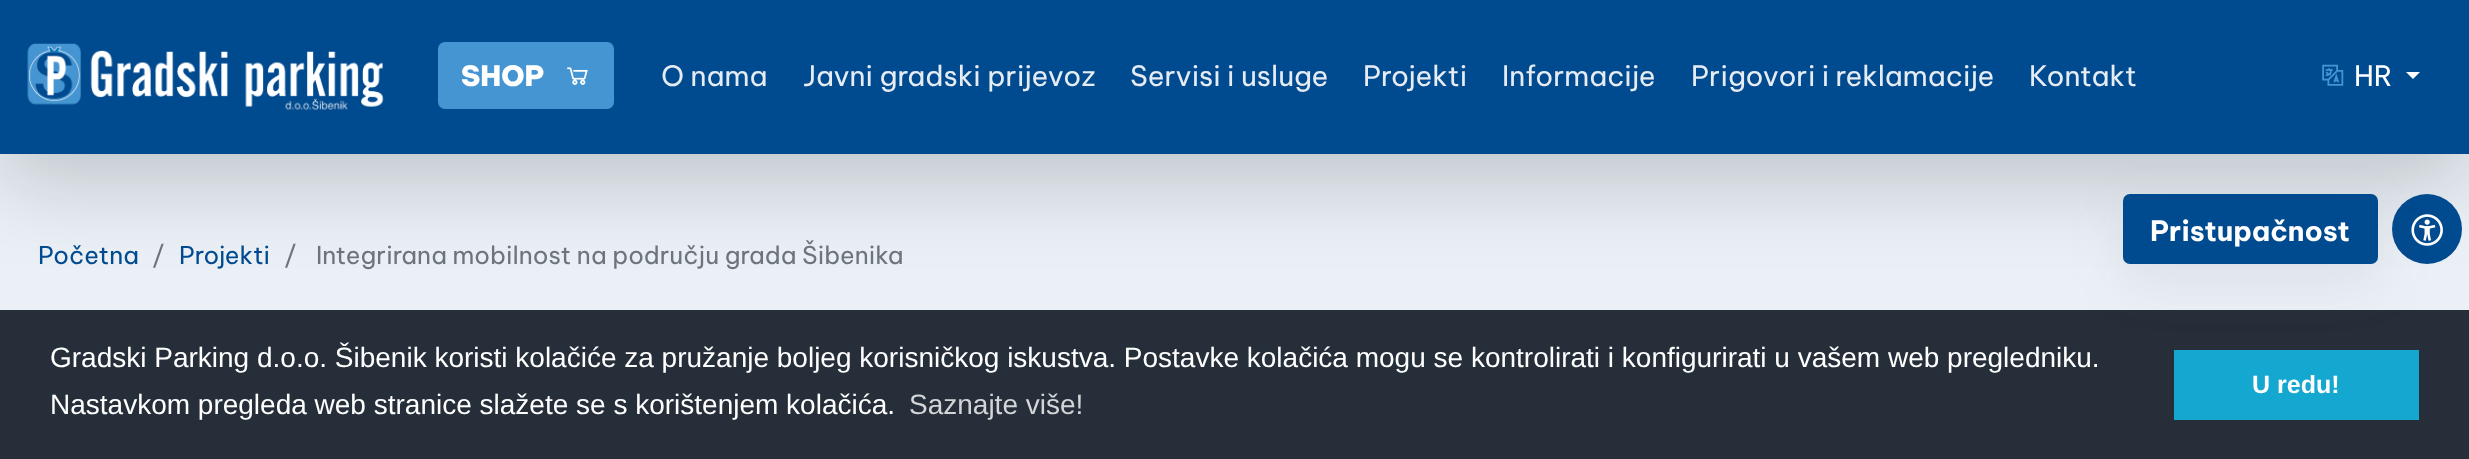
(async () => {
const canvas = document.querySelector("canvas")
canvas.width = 2469
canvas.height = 459
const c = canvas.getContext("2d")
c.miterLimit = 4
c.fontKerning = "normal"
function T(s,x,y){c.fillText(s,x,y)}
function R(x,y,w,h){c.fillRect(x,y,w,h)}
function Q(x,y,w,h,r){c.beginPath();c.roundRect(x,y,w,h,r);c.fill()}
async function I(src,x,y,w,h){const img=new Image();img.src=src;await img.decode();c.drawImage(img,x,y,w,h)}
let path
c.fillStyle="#eaf0f6"
R(0,0,2469,459)
c.fillStyle="#0000002e"
c.filter="blur(42px)"
c.beginPath()
c.rect(0,28,2469,154)
c.fill()
c.filter="none"
c.fillStyle="#004a8f"
R(0,0,2469,154)
await I("1.png",27,43,357,67)
c.fillStyle="#4495d1"
c.beginPath()
c.roundRect(439,43,174,65,6)
c.fill()
c.strokeStyle="#4495d1"
c.lineWidth=2
c.stroke()
c.font="900 28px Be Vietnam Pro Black"
c.fillStyle="#fff"
T("SHOP",461,86)
await I("2.png",567,67,21,18)
c.font="28px Be Vietnam Pro"
c.fillStyle="#e5ecf3"
T("O nama",661,86)
T("Javni gradski prijevoz",803,86)
T("Servisi i usluge",1130,86)
T("Projekti",1363,86)
T("Informacije",1502,86)
T("Prigovori i reklamacije",1691,86)
T("Kontakt",2029,86)
await I("3.png",2322,64,22,22)
c.fillStyle="#fff"
T("HR",2354,86)
path = new Path2D("M2406 72h14l-7 7z")
c.fill(path)
c.fillStyle="#004a8f"
c.beginPath()
c.arc(2427,229,35,0,7)
c.fill()
await I("4.png",2411,214,32,32)
c.fillStyle="#252e39"
R(0,310,2469,149)
c.fillStyle="#14a7d0"
R(2174,350,245,70)
c.fillStyle="#6666661a"
c.filter="blur(26px)"
c.beginPath()
c.roundRect(2123,212,255,70,7)
c.fill()
c.filter="none"
c.fillStyle="#004a8f"
Q(2123,194,255,70,7)
c.font="bold 28px Be Vietnam Pro"
c.fillStyle="#fff"
T("Pristupačnost",2150,241)
c.font="24.5px Be Vietnam Pro"
c.fillStyle="#004a8f"
T("Početna",38,264)
c.fillStyle="#6c757d"
T("/",152,264)
c.fillStyle="#004a8f"
T("Projekti",179,264)
c.fillStyle="#6c757d"
T("/",284,264)
T("Integrirana mobilnost na području grada Šibenika",316,264)
c.font="28px Liberation Sans"
c.fillStyle="#fff"
T("Gradski Parking d.o.o. Šibenik koristi kolačiće za pružanje boljeg korisničkog iskustva. Postavke kolačića mogu se kontrolirati i konfigurirati u vašem web pregledniku.",50,367)
T("Nastavkom pregleda web stranice slažete se s korištenjem kolačića.",50,414)
c.fillStyle="#d3d5d7"
T("Saznajte više!",909,414)
c.font="bold 25px Liberation Sans"
c.fillStyle="#fff"
T("U redu!",2252,393)
})()
